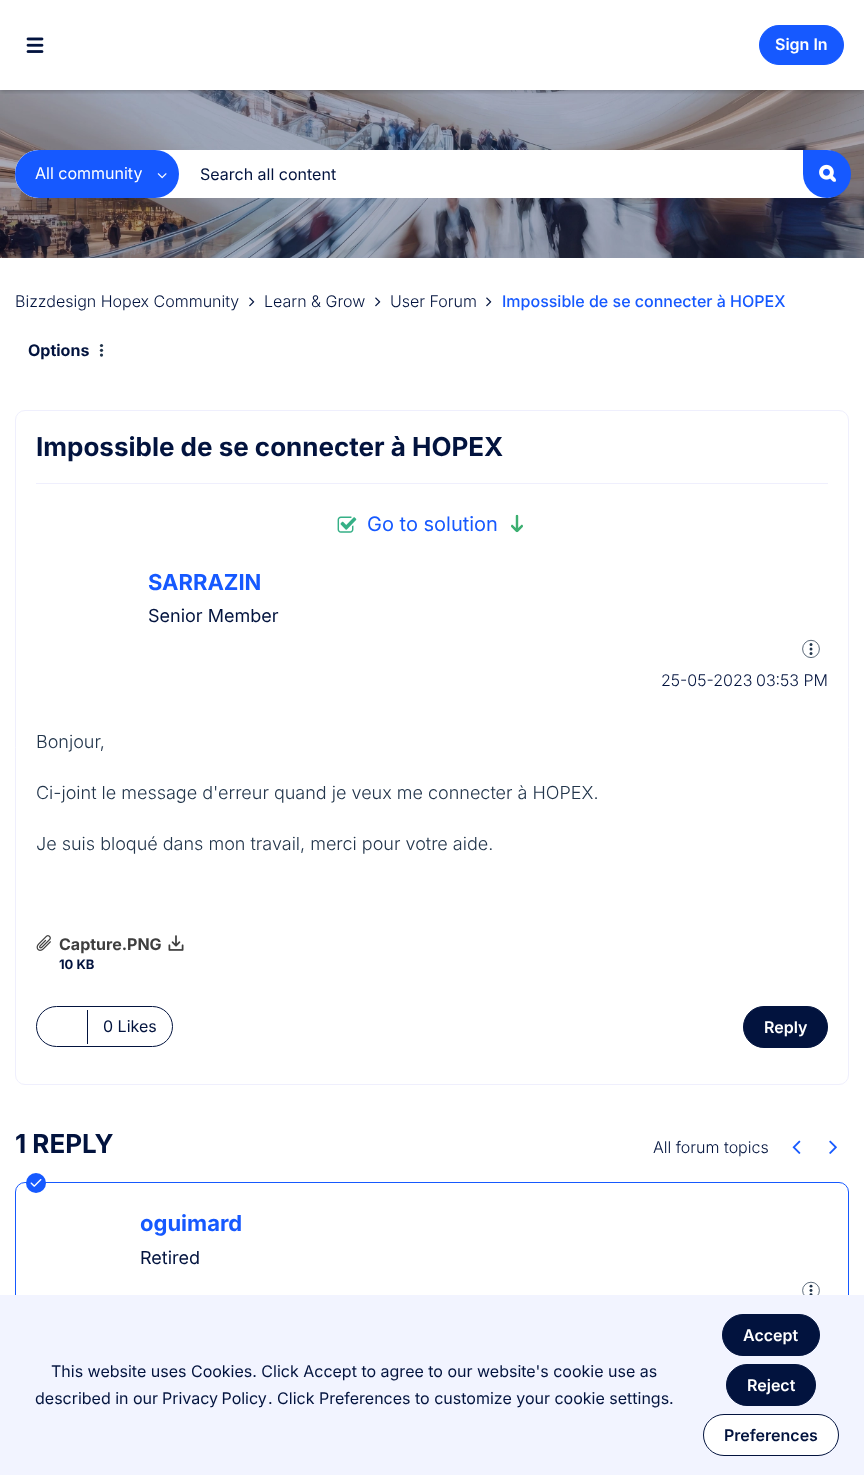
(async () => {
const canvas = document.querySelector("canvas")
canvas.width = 864
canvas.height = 1475
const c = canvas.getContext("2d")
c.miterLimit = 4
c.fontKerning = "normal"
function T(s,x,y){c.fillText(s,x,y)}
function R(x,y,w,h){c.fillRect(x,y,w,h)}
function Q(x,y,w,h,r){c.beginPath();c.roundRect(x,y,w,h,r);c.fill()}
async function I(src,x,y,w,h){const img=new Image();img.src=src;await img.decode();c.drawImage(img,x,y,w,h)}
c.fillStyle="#fff"
R(0,0,864,1475)
await I("2.png",0,90,864,168)
c.save()
c.beginPath()
c.rect(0,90,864,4)
c.clip()
c.fillStyle="#00000040"
c.filter="blur(2px)"
c.beginPath()
c.rect(1,3,862,88)
c.fill()
c.filter="none"
c.restore()
await I("1.png",26,37,18,16)
c.fillStyle="#1659ff"
c.beginPath()
c.roundRect(759.5,25.5,84,39,19.5)
c.fill()
c.strokeStyle="#1659ff"
c.stroke()
c.font="600 16px Inter"
c.fillStyle="#fff"
T("Sign In",775,50)
Q(15,150,834,48,24)
c.beginPath()
c.roundRect(15,150,164,48,[24,0,24,24])
c.fill()
c.fillStyle="#1659ff"
Q(15,150,164,48,24)
c.font="16px Inter"
c.fillStyle="#fff"
T("All community",35,179)
await I("3.png",157,173,10,6)
c.beginPath()
c.roundRect(179,150,670,48,[0,24,24,0])
c.fill()
c.fillStyle="#02133e"
T("Search all content",200,180)
c.fillStyle="#1659ff"
c.beginPath()
c.roundRect(803,150,48,48,[0,24,24,24])
c.fill()
await I("4.png",819,164,17,18)
c.font="300 16px Inter"
c.fillStyle="#02133e"
T("Bizzdesign Hopex Community",15,307)
await I("5.png",249,297,6,10)
T("Learn & Grow",264,307)
await I("5.png",375,297,6,10)
T("User Forum",390,307)
await I("5.png",486,297,6,10)
c.font="500 16px Inter"
c.fillStyle="#1659ff"
T("Impossible de se connecter à HOPEX",502,307)
c.fillStyle="#22354b"
c.beginPath()
c.arc(101.5,345.5,1.6,0,7)
c.fill()
c.beginPath()
c.arc(101.5,350.3,1.6,0,7)
c.fill()
c.beginPath()
c.arc(101.5,355.1,1.6,0,7)
c.fill()
c.font="bold 16px Inter"
c.fillStyle="#02133e"
T("Options",28,356)
c.beginPath()
c.roundRect(15.5,410.5,833,674,9.5)
c.strokeStyle="#efeffd"
c.stroke()
c.fillStyle="#efeffd"
R(36,483,792,1)
c.font="bold 26px Inter"
c.fillStyle="#02133e"
T("Impossible de se connecter à HOPEX",36,456)
await I("6.png",337,516,20,17)
c.font="20px Inter"
c.fillStyle="#1659ff"
T("Go to solution",367,531)
await I("7.png",511,514,12,19)
c.font="bold 22px Inter"
T("SARRAZIN",148,590)
c.font="18px Inter"
c.fillStyle="#02133e"
T("Senior Member",148,622)
await I("8.png",802,639,18,19)
c.font="300 16px Inter"
T("25-05-2023",661,686)
T("03:53 PM",756,686)
c.font="300 18px Inter"
c.fillStyle="#22354b"
T("Bonjour,",36,748)
T("Ci-joint le message d'erreur quand je veux me connecter à HOPEX.",36,799)
T("Je suis bloqué dans mon travail, merci pour votre aide.",36,850)
await I("9.png",36,935,15,16)
c.font="bold 16px Inter"
c.fillStyle="#3e3e3e"
T("Capture.PNG",59,950)
c.font="bold 13px Inter"
c.fillStyle="#02133e"
T("10 KB",59,969)
await I("10.png",168,935,16,16)
c.beginPath()
c.roundRect(36.5,1006.5,136,40,20)
c.strokeStyle="#02133e"
c.stroke()
R(87,1010,1,34)
c.font="16px Inter"
T("0 Likes",103,1032)
c.beginPath()
c.roundRect(743.5,1006.5,84,41,20.5)
c.fill()
c.stroke()
c.font="600 16px Inter"
c.fillStyle="#fff"
T("Reply",764,1033)
c.font="bold 26px Inter"
c.fillStyle="#02133e"
T("1 REPLY",15,1153)
c.font="300 16px Inter"
T("All forum topics",653,1153)
await I("11.png",792,1140,9,14)
await I("12.png",829,1140,8,14)
c.beginPath()
c.roundRect(15.5,1182.5,833,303,9.5)
c.strokeStyle="#1659ff"
c.stroke()
c.fillStyle="#1659ff"
c.beginPath()
c.arc(36,1183,10,0,7)
c.fill()
await I("13.png",30,1179,12,8)
c.font="bold 22px Inter"
T("oguimard",140,1231)
c.font="18px Inter"
c.fillStyle="#02133e"
T("Retired",140,1264)
await I("14.png",802,1281,18,14)
c.fillStyle="#f2f4ff"
R(0,1295,864,180)
c.font="16px Inter"
c.fillStyle="#02133e"
T("This website uses Cookies. Click Accept to agree to our website's cookie use as",51,1377)
T("described in our",35,1404)
c.wordSpacing="-1px"
T("Privacy Policy",162,1404)
c.wordSpacing="0px"
T(". Click Preferences to customize your cookie settings.",268,1404)
c.beginPath()
c.roundRect(722.5,1314.5,97,41,20.5)
c.fill()
c.strokeStyle="#02133e"
c.stroke()
c.font="600 16px Inter"
c.fillStyle="#fff"
T("Accept",743,1341)
c.fillStyle="#02133e"
c.beginPath()
c.roundRect(726.5,1364.5,89,41,20.5)
c.fill()
c.stroke()
c.fillStyle="#fff"
T("Reject",747,1391)
c.beginPath()
c.roundRect(703.5,1414.5,135,41,20.5)
c.fill()
c.stroke()
c.fillStyle="#02133e"
T("Preferences",724,1441)
})()
